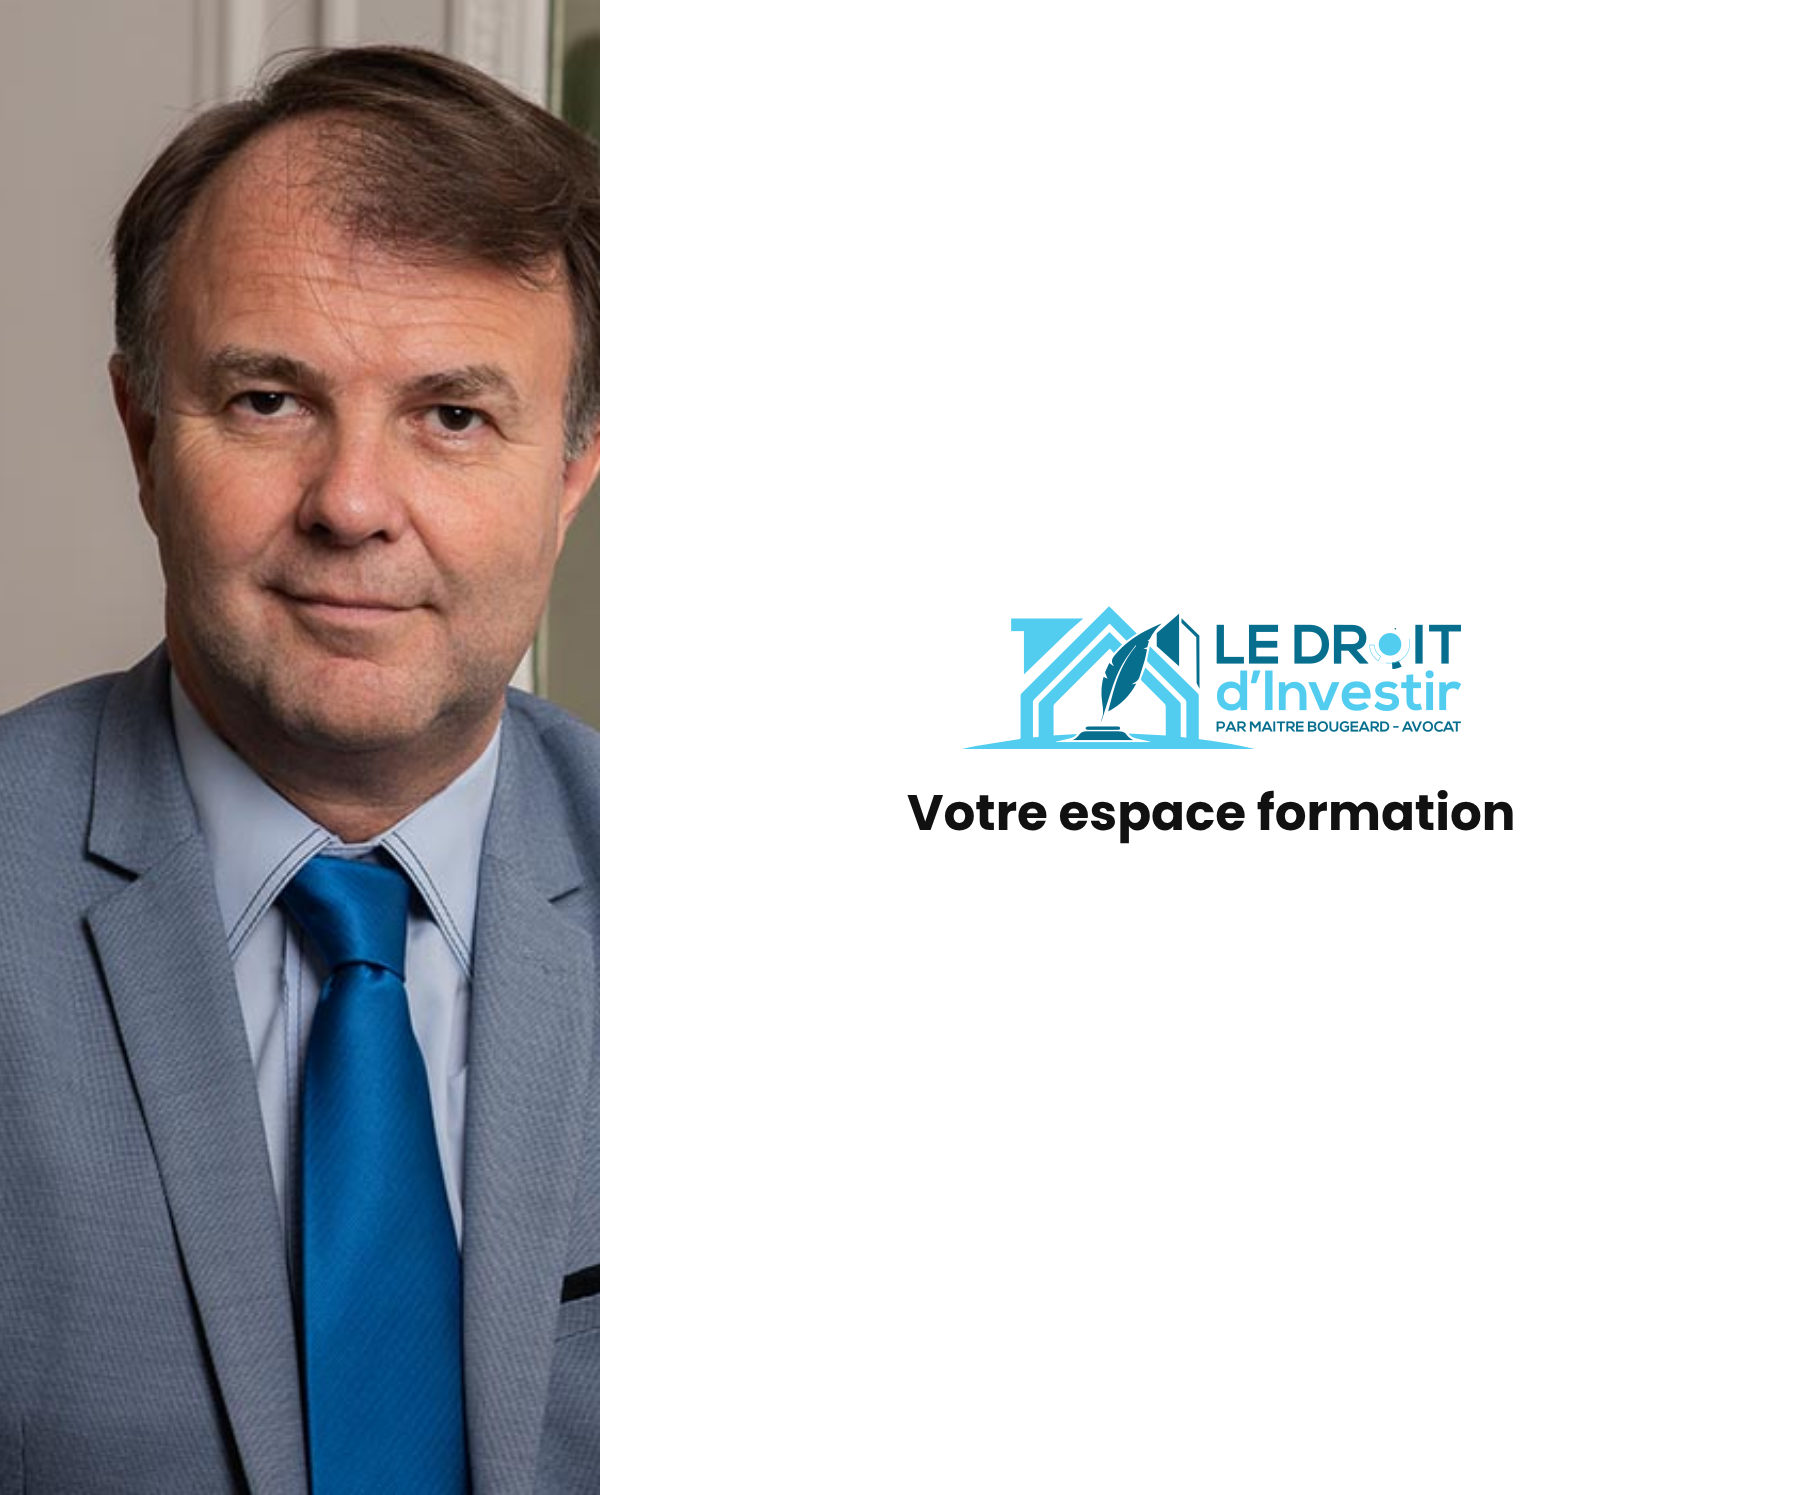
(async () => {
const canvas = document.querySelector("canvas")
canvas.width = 1819
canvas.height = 1495
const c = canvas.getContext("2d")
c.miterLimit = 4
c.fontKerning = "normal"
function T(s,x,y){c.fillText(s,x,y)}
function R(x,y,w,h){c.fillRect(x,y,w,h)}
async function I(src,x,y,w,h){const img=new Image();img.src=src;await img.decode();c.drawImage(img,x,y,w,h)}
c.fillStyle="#fff"
R(0,0,1819,1495)
await I("1.png",0,0,600,1495)
await I("2.png",962,606,499,143)
c.font="bold 50px Poppins"
c.fillStyle="#111"
T("Votre espace formation",907,830)
})()
